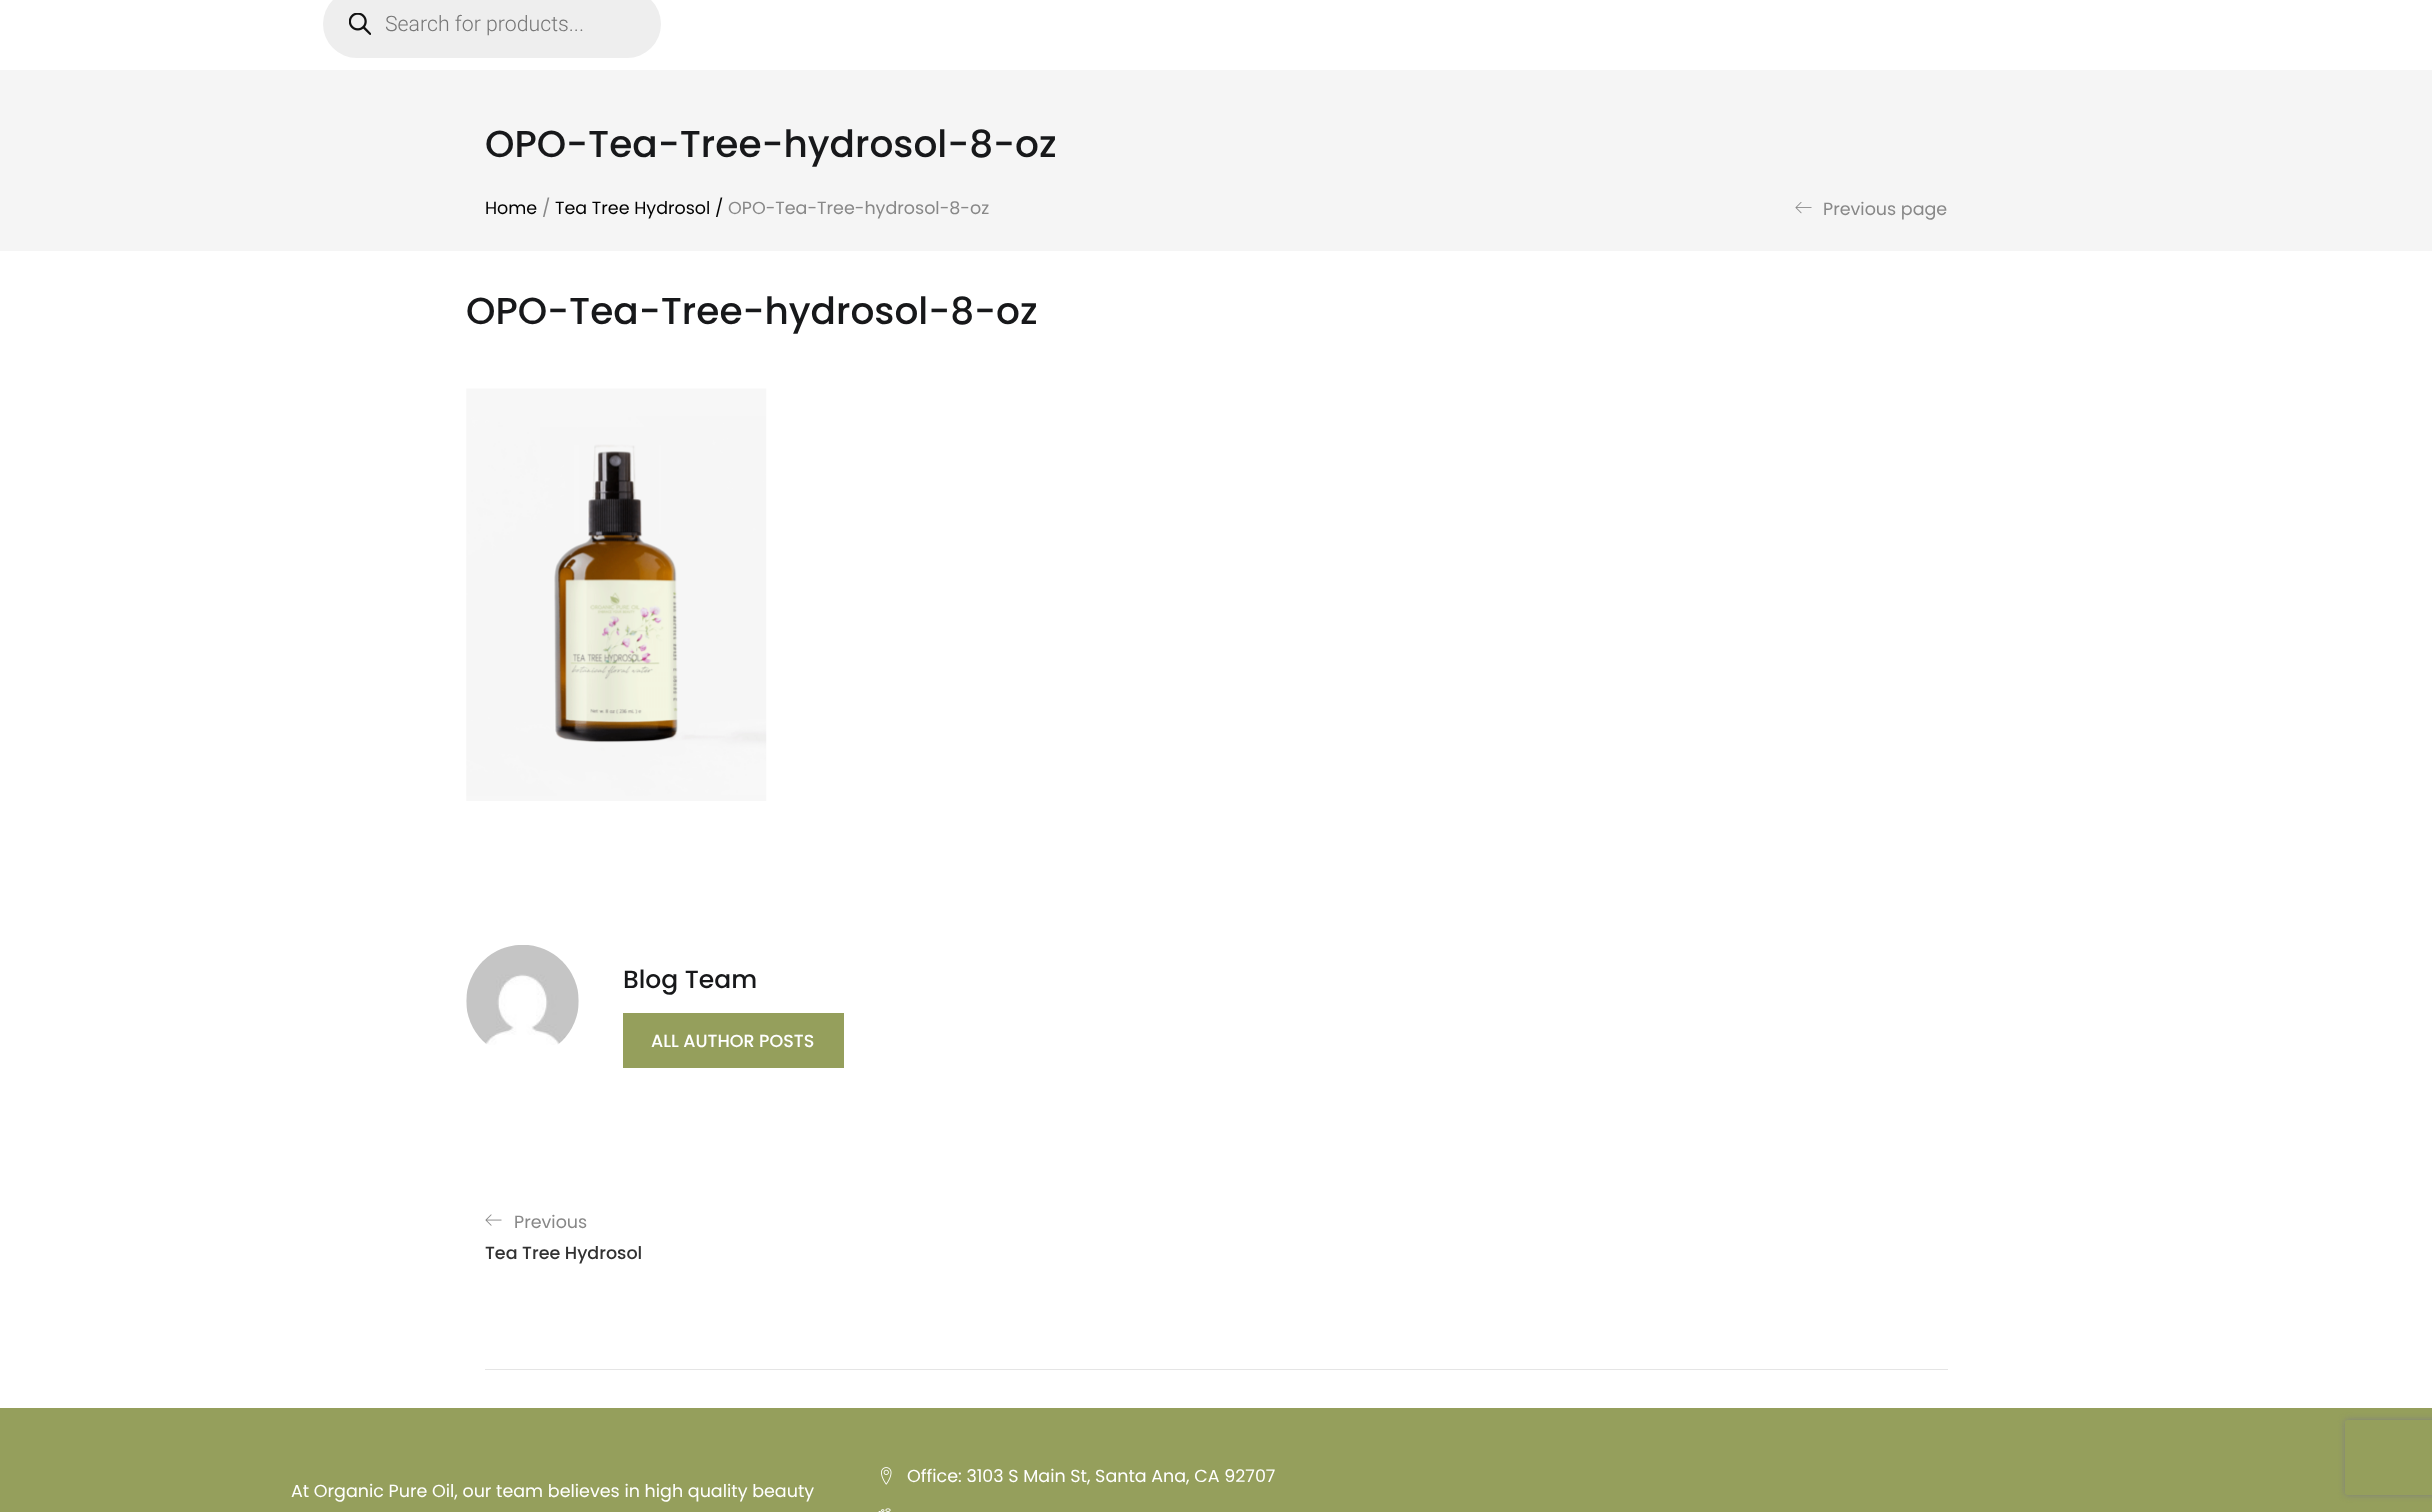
(async () => {
const canvas = document.querySelector("canvas")
canvas.width = 2432
canvas.height = 1512
const c = canvas.getContext("2d")
c.miterLimit = 4
c.fontKerning = "normal"
function T(s,x,y){c.fillText(s,x,y)}
function R(x,y,w,h){c.fillRect(x,y,w,h)}
function Q(x,y,w,h,r){c.beginPath();c.roundRect(x,y,w,h,r);c.fill()}
async function I(src,x,y,w,h){const img=new Image();img.src=src;await img.decode();c.drawImage(img,x,y,w,h)}
let path
c.fillStyle="#fff"
R(0,0,2432,1512)
c.fillStyle="#eee"
Q(323,-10,338,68,34)
await I("1.png",349,13,22,22)
c.font="300 21.25px Roboto"
c.fillStyle="#777"
T("Search for products...",385,31)
c.fillStyle="#f5f5f5"
R(0,70,2432,181)
c.font="500 37.5px Poppins"
c.fillStyle="#17181a"
T("OPO-Tea-Tree-hydrosol-8-oz",485,157)
c.font="17.5px Poppins"
c.fillStyle="#000"
T("Home",485,214)
c.fillStyle="#888"
T("/",542,214)
c.fillStyle="#000"
T("Tea Tree Hydrosol /",555,214)
c.fillStyle="#888"
T("OPO-Tea-Tree-hydrosol-8-oz",728,214)
await I("2.png",1795,202,17,12)
T("Previous page",1823,215)
c.font="500 37.5px Poppins"
c.fillStyle="#17181a"
T("OPO-Tea-Tree-hydrosol-8-oz",466,324)
await I("3.png",466,388,301,413)
await I("4.png",466,945,113,100)
c.font="500 25px Poppins"
T("Blog Team",623,988)
c.fillStyle="#959f5c"
R(623,1013,221,55)
c.font="500 17.5px Poppins"
c.fillStyle="#fff"
T("ALL AUTHOR POSTS",651,1047)
await I("5.png",485,1214,17,12)
c.font="17.5px Poppins"
c.fillStyle="#888"
T("Previous",514,1228)
c.font="500 17.5px Poppins"
c.fillStyle="#323232"
T("Tea Tree Hydrosol",485,1259)
c.fillStyle="#e5e5e5"
R(485,1369,1463,1)
c.fillStyle="#959f5c"
R(0,1408,2432,104)
await I("6.png",881,1467,11,18)
c.font="17.5px Poppins"
c.fillStyle="#fff"
T("Office: 3103 S Main St, Santa Ana, CA 92707",907,1482)
await I("7.png",878,1508,13,4)
T("At Organic Pure Oil, our team believes in high quality beauty",291,1497)
c.save()
path = new Path2D("M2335 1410h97v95h-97zm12.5 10h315c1.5 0 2.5 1 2.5 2.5v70c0 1.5-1 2.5-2.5 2.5h-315c-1.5 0-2.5-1-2.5-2.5v-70c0-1.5 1-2.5 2.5-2.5z")
c.clip(path,"evenodd")
c.fillStyle="#808080"
c.filter="blur(3px)"
c.beginPath()
c.roundRect(2345,1420,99,75,2.5)
c.fill()
c.filter="none"
c.restore()
})()
